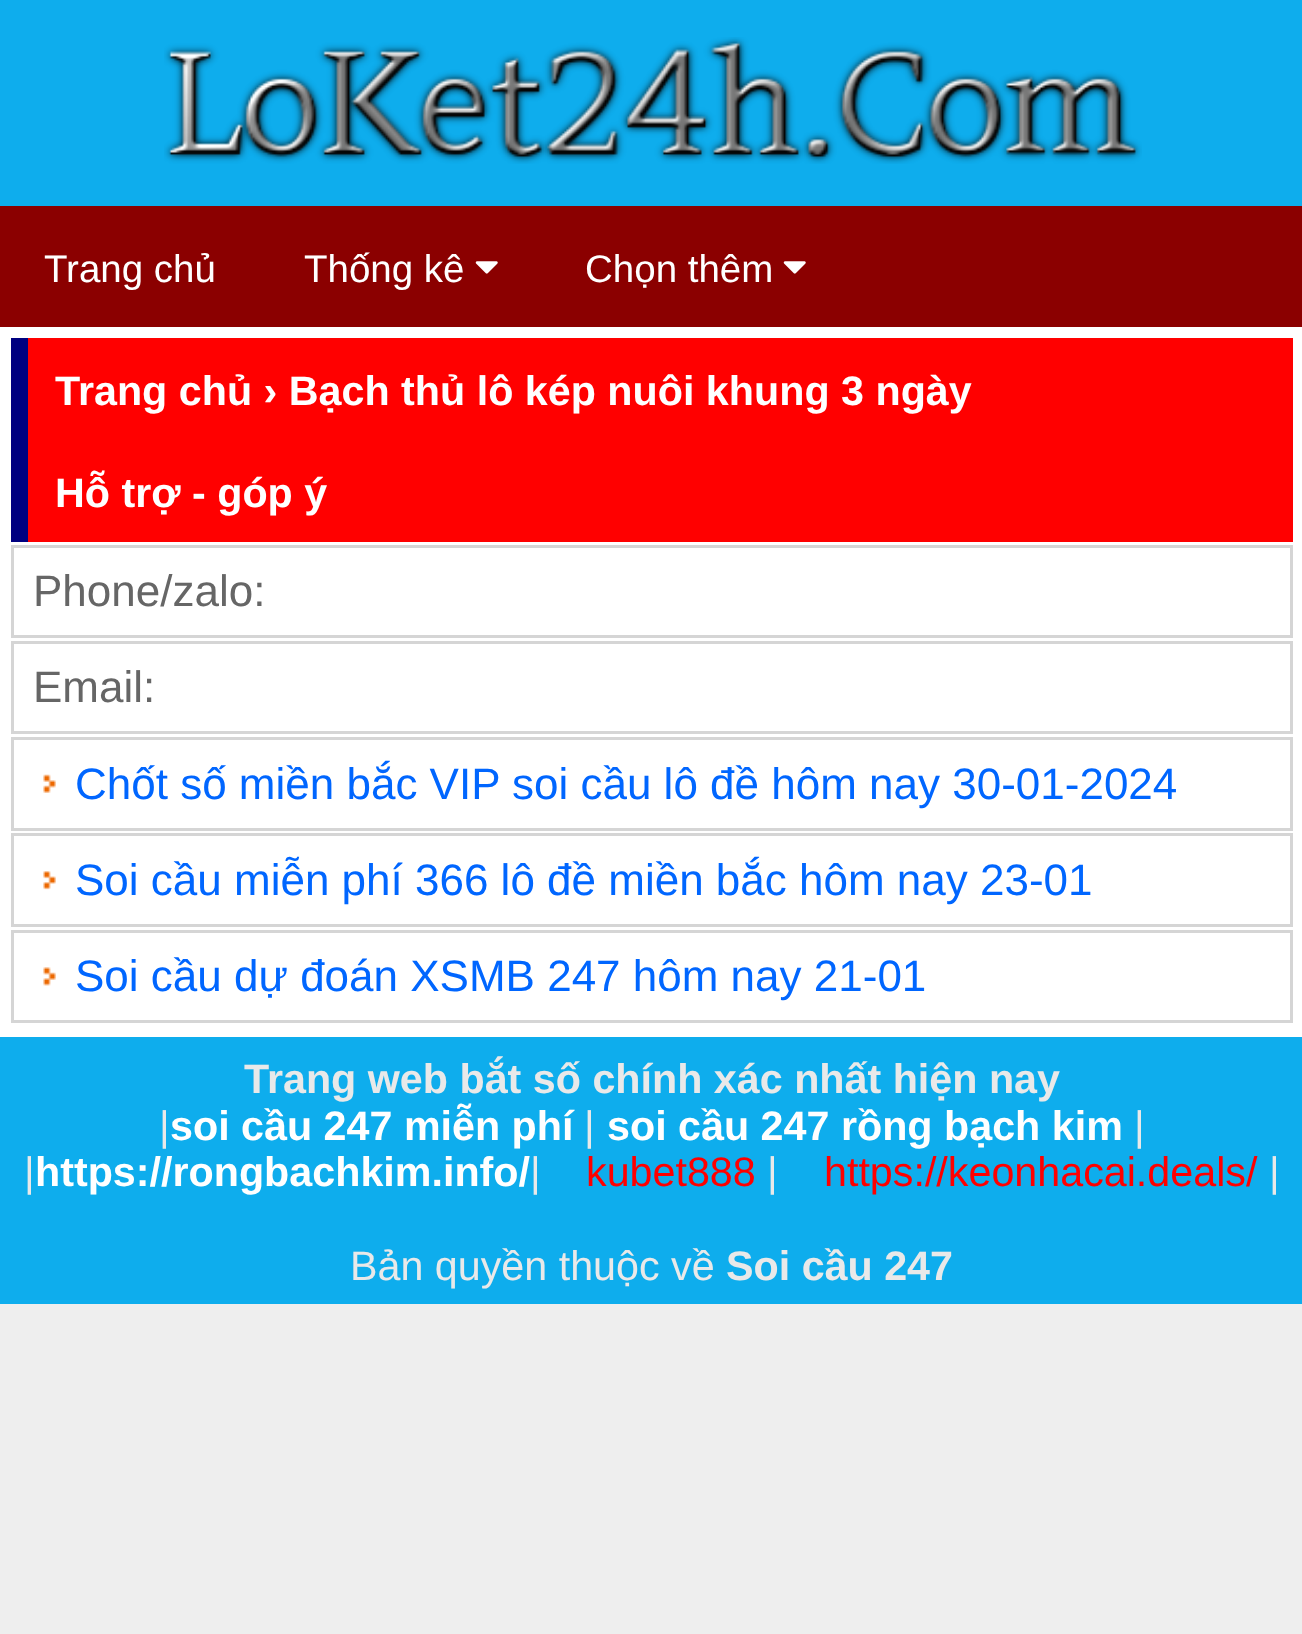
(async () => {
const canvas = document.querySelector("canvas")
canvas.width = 1302
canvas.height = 1634
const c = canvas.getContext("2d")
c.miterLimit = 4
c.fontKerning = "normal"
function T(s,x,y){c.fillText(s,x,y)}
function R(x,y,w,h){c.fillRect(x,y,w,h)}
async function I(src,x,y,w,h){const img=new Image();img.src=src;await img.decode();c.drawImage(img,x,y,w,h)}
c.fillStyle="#eee"
R(0,0,1302,1634)
c.fillStyle="#0eaded"
R(0,0,1302,206)
await I("1.png",164,37,978,127)
c.fillStyle="#8b0000"
R(0,206,1302,121)
c.font="38.5px Liberation Sans"
c.fillStyle="#fff"
T("Trang chủ",44,282)
T("Thống kê",304,282)
await I("2.png",475,261,23,13)
T("Chọn thêm",585,282)
await I("2.png",783,261,23,13)
R(0,327,1302,710)
c.fillStyle="#f00"
R(28,338,1265,204)
c.fillStyle="#000080"
R(11,338,17,204)
c.font="bold 41.25px Liberation Sans"
c.fillStyle="#fff"
T("Trang chủ › Bạch thủ lô kép nuôi khung 3 ngày",55,405)
T("Hỗ trợ - góp ý",55,507)
c.strokeStyle="#d5d5d5"
c.lineWidth=3
c.strokeRect(12.5,546.5,1279,90)
c.font="44px Liberation Sans"
c.fillStyle="#666"
T("Phone/zalo:",33,606)
c.strokeRect(12.5,642.5,1279,90)
T("Email:",33,702)
c.strokeRect(12.5,738.5,1279,91)
await I("3.png",43,774,13,19)
c.fillStyle="#06f"
T("Chốt số miền bắc VIP soi cầu lô đề hôm nay 30-01-2024",75,799)
c.strokeRect(12.5,834.5,1279,91)
await I("4.png",43,871,13,19)
T("Soi cầu miễn phí 366 lô đề miền bắc hôm nay 23-01",75,895)
c.strokeRect(12.5,931.5,1279,90)
await I("5.png",43,967,13,19)
T("Soi cầu dự đoán XSMB 247 hôm nay 21-01",75,991)
c.fillStyle="#0eaded"
R(0,1037,1302,267)
c.font="bold 41.25px Liberation Sans"
c.fillStyle="#e9e9e9"
T("Trang web bắt số chính xác nhất hiện nay",244,1093)
c.font="41.25px Liberation Sans"
T("|",159,1140)
c.font="bold 41.25px Liberation Sans"
c.fillStyle="#fff"
T("soi cầu 247 miễn phí",170,1140)
c.font="41.25px Liberation Sans"
c.fillStyle="#e9e9e9"
T("|",584,1140)
c.font="bold 41.25px Liberation Sans"
c.fillStyle="#fff"
T("soi cầu 247 rồng bạch kim",607,1140)
c.font="41.25px Liberation Sans"
c.fillStyle="#e9e9e9"
T("|",1134,1140)
T("|",24,1186)
c.font="bold 41.25px Liberation Sans"
c.fillStyle="#fff"
T("https://rongbachkim.info/",35,1186)
c.font="41.25px Liberation Sans"
c.fillStyle="#e9e9e9"
T("|",530,1186)
c.fillStyle="#f00"
T("kubet888",586,1186)
c.fillStyle="#e9e9e9"
T("|",767,1186)
c.fillStyle="#f00"
T("https://keonhacai.deals/",824,1186)
c.fillStyle="#e9e9e9"
T("|",1269,1186)
T("Bản quyền thuộc về",350,1280)
c.font="bold 41.25px Liberation Sans"
T("Soi cầu 247",726,1280)
})()
